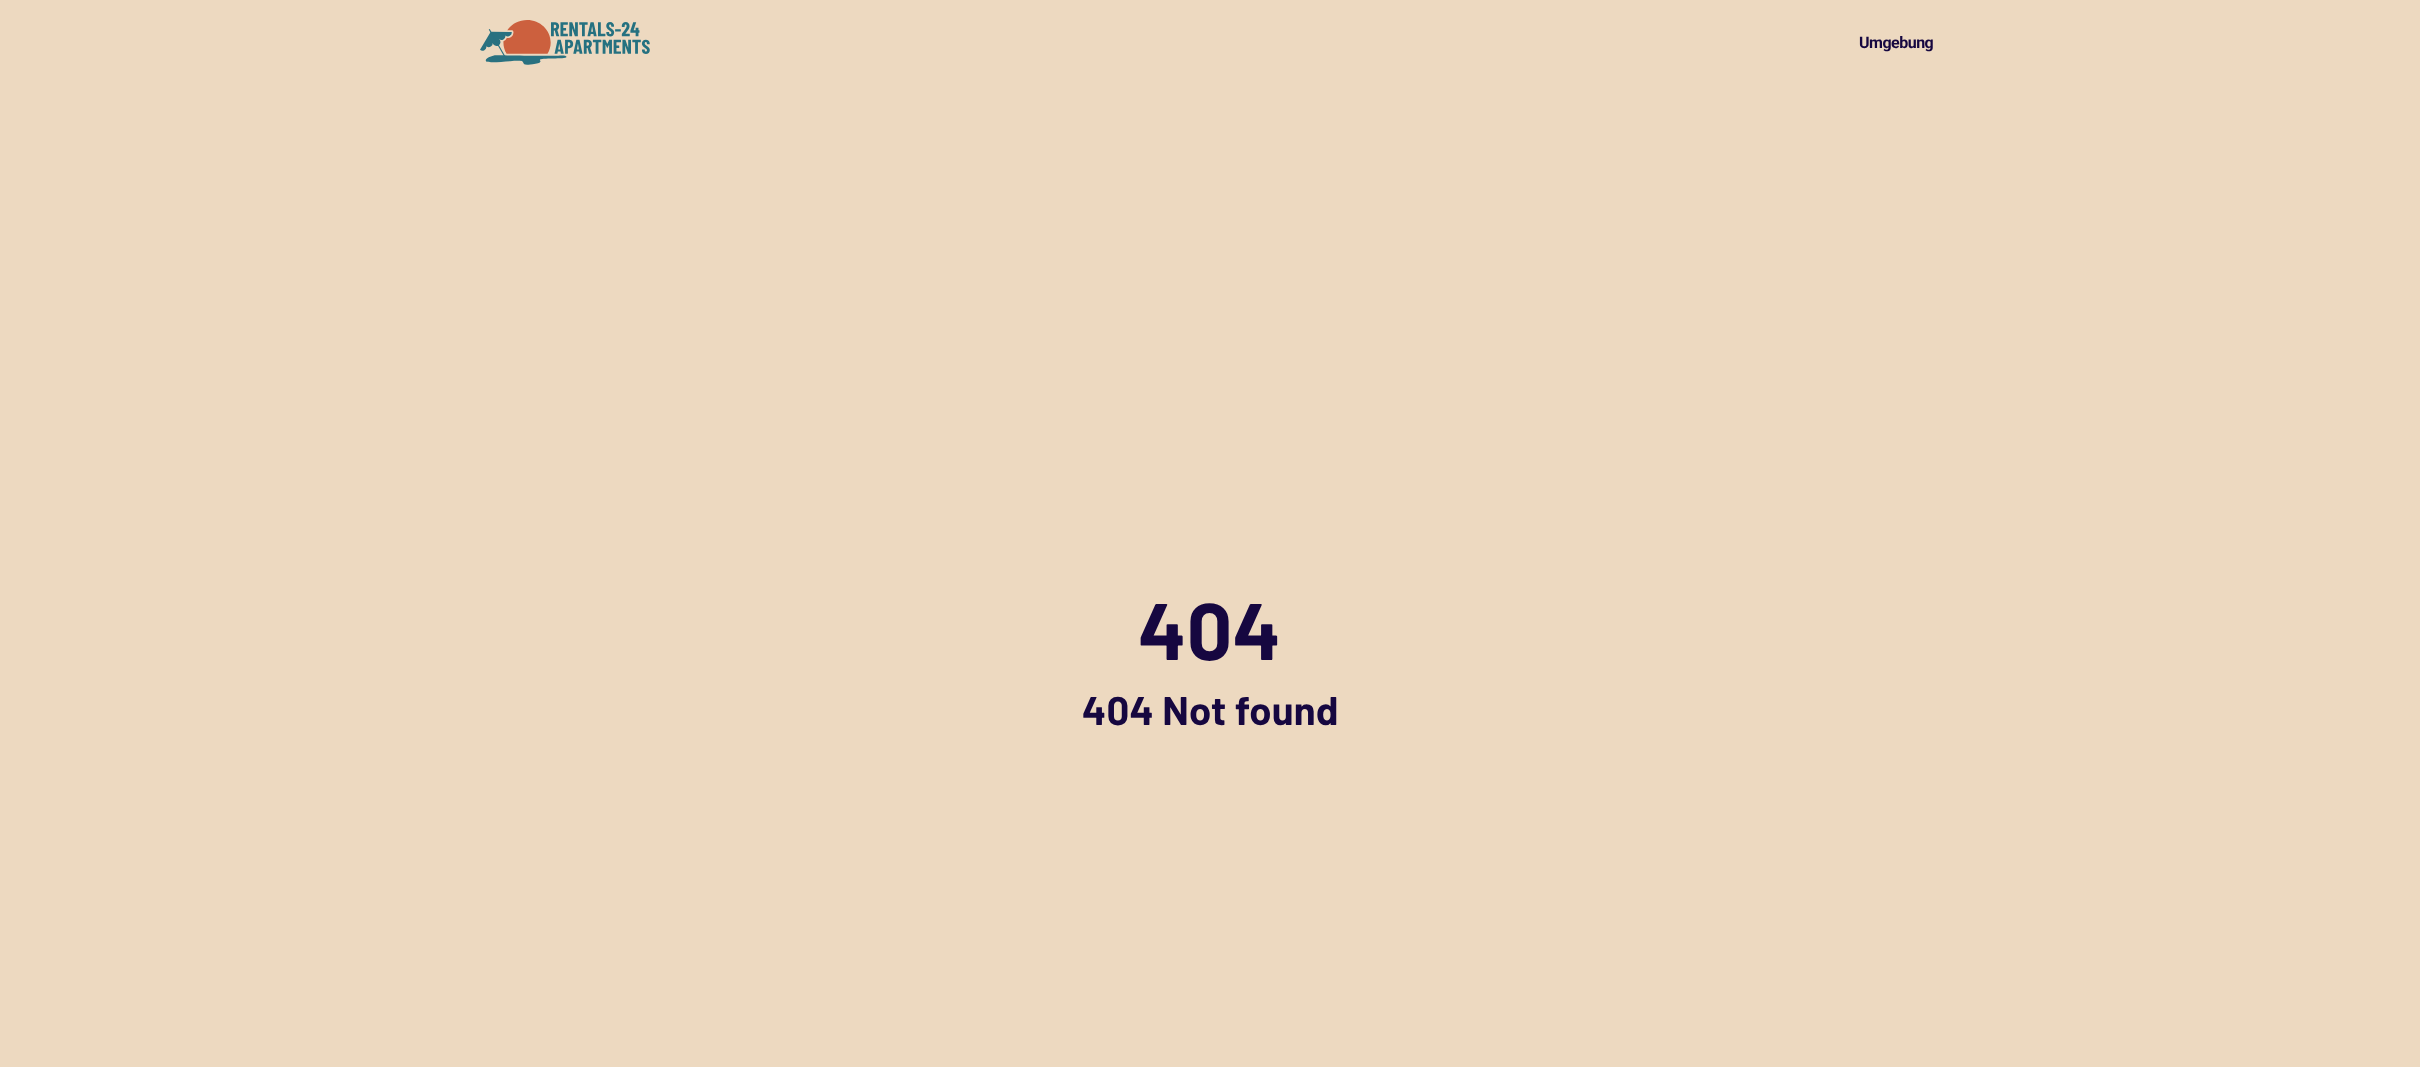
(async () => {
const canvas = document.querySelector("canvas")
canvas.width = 2420
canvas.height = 1067
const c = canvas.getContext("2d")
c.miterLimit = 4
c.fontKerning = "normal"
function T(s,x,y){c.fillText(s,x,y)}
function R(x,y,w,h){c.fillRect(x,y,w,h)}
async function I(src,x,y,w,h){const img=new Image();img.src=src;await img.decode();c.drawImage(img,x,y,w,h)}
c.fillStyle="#edd9c0"
R(0,0,2420,1067)
await I("1.png",480,20,170,45)
c.letterSpacing="-0.5px"
c.font="bold 16px Roboto"
c.fillStyle="#160740"
T("Umgebung",1859,48)
c.letterSpacing="0.25px"
c.font="bold 80px Barlow"
T("404",1138,660)
c.font="bold 40px Barlow"
T("404 Not found",1082,725)
})()
